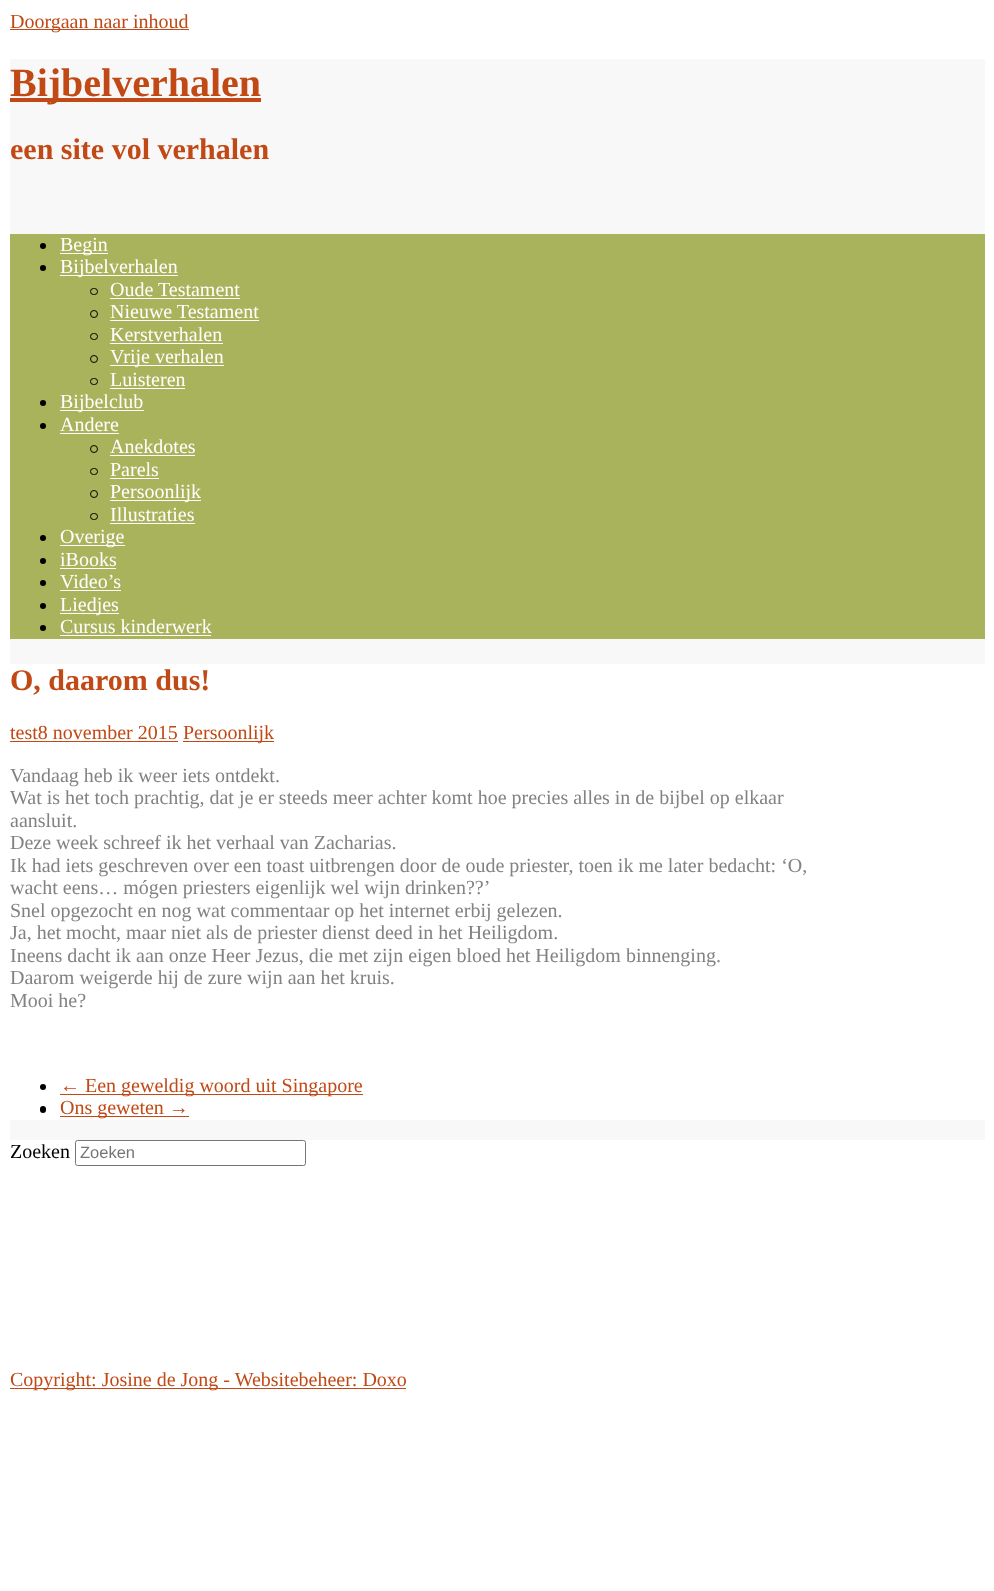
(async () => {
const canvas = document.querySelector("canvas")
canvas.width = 994
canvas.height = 1591
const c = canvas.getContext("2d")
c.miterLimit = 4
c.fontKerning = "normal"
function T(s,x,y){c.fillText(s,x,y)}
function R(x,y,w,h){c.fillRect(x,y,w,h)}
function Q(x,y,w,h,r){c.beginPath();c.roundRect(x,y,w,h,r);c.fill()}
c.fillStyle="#fff"
R(0,0,994,1591)
c.fillStyle="#c14915"
R(10,29,179,1)
c.font="20px Liberation Serif"
T("Doorgaan naar inhoud",10,28)
c.fillStyle="#f8f8f8"
R(10,59,975,1081)
c.fillStyle="#c14915"
R(10,98,251,4)
c.font="bold 40px Liberation Serif"
T("Bijbelverhalen",10,96)
c.font="bold 30px Liberation Serif"
T("een site vol verhalen",10,159)
c.fillStyle="#a9b35b"
R(10,234,975,405)
c.fillStyle="#000"
c.beginPath()
c.arc(43,246,3,0,7)
c.fill()
c.fillStyle="#fff"
R(60,253,48,1)
c.font="20px Liberation Serif"
T("Begin",60,251)
c.fillStyle="#000"
c.beginPath()
c.arc(43,268,3,0,7)
c.fill()
c.fillStyle="#fff"
R(60,275,118,1)
T("Bijbelverhalen",60,273)
c.beginPath()
c.roundRect(90.5,288.5,7,6,3)
c.strokeStyle="#000"
c.stroke()
T("Oude Testament",110,296)
R(110,298,130,1)
c.beginPath()
c.arc(94,314,3.5,0,7)
c.stroke()
T("Nieuwe Testament",110,318)
R(110,320,149,1)
c.beginPath()
c.roundRect(90.5,333.5,7,6,3)
c.stroke()
T("Kerstverhalen",110,341)
R(110,343,113,1)
c.beginPath()
c.arc(94,359,3.5,0,7)
c.stroke()
R(110,365,114,1)
T("Vrije verhalen",110,363)
c.beginPath()
c.roundRect(90.5,378.5,7,6,3)
c.stroke()
T("Luisteren",110,386)
R(110,388,75,1)
c.fillStyle="#000"
c.beginPath()
c.arc(43,403,3,0,7)
c.fill()
c.fillStyle="#fff"
R(60,410,84,1)
T("Bijbelclub",60,408)
c.fillStyle="#000"
c.beginPath()
c.arc(43,426,3,0,7)
c.fill()
c.fillStyle="#fff"
T("Andere",60,431)
R(60,433,59,1)
c.beginPath()
c.arc(94,449,3.5,0,7)
c.stroke()
T("Anekdotes",110,453)
R(110,455,85,1)
c.beginPath()
c.roundRect(90.5,468.5,7,6,3)
c.stroke()
T("Parels",110,476)
R(110,478,49,1)
c.beginPath()
c.arc(94,494,3.5,0,7)
c.stroke()
R(110,500,91,1)
T("Persoonlijk",110,498)
c.beginPath()
c.roundRect(90.5,513.5,7,6,3)
c.stroke()
T("Illustraties",110,521)
R(110,523,85,1)
c.fillStyle="#000"
c.beginPath()
c.arc(43,538,3,0,7)
c.fill()
c.fillStyle="#fff"
R(60,545,65,1)
T("Overige",60,543)
c.fillStyle="#000"
c.beginPath()
c.arc(43,561,3,0,7)
c.fill()
c.fillStyle="#fff"
T("iBooks",60,566)
R(60,568,56,1)
c.fillStyle="#000"
c.beginPath()
c.arc(43,583,3,0,7)
c.fill()
c.fillStyle="#fff"
T("Video’s",60,588)
R(60,590,61,1)
c.fillStyle="#000"
c.beginPath()
c.arc(43,606,3,0,7)
c.fill()
c.fillStyle="#fff"
R(60,613,59,1)
T("Liedjes",60,611)
c.fillStyle="#000"
c.beginPath()
c.arc(43,628,3,0,7)
c.fill()
c.fillStyle="#fff"
T("Cursus kinderwerk",60,633)
R(60,635,151,1)
R(10,664,975,456)
c.font="bold 30px Liberation Serif"
c.fillStyle="#c14915"
T("O, daarom dus!",10,690)
c.font="20px Liberation Serif"
T("test8 november 2015",10,739)
R(10,741,168,1)
R(183,741,91,1)
T("Persoonlijk",183,739)
c.fillStyle="#828282"
T("Vandaag heb ik weer iets ontdekt.",10,782)
T("Wat is het toch prachtig, dat je er steeds meer achter komt hoe precies alles in de bijbel op elkaar",10,804)
T("aansluit.",10,827)
T("Deze week schreef ik het verhaal van Zacharias.",10,849)
T("Ik had iets geschreven over een toast uitbrengen door de oude priester, toen ik me later bedacht: ‘O,",10,872)
T("wacht eens… mógen priesters eigenlijk wel wijn drinken??’",10,894)
T("Snel opgezocht en nog wat commentaar op het internet erbij gelezen.",10,917)
T("Ja, het mocht, maar niet als de priester dienst deed in het Heiligdom.",10,939)
T("Ineens dacht ik aan onze Heer Jezus, die met zijn eigen bloed het Heiligdom binnenging.",10,962)
T("Daarom weigerde hij de zure wijn aan het kruis.",10,984)
T("Mooi he?",10,1007)
c.fillStyle="#000"
c.beginPath()
c.arc(43,1087,3,0,7)
c.fill()
c.fillStyle="#c14915"
R(60,1094,303,1)
T("← Een geweldig woord uit Singapore",60,1092)
c.fillStyle="#000"
Q(40,1106,6,7,3)
c.fillStyle="#c14915"
R(60,1116,129,1)
T("Ons geweten →",60,1114)
c.fillStyle="#000"
T("Zoeken",10,1158)
c.beginPath()
c.roundRect(75.5,1140.5,230,25,2)
c.strokeStyle="#767676"
c.stroke()
c.font="16.5px Liberation Sans"
c.fillStyle="#757575"
T("Zoeken",80,1158)
c.fillStyle="#c14915"
R(10,1388,396,1)
c.font="20px Liberation Serif"
T("Copyright: Josine de Jong - Websitebeheer: Doxo",10,1386)
})()
